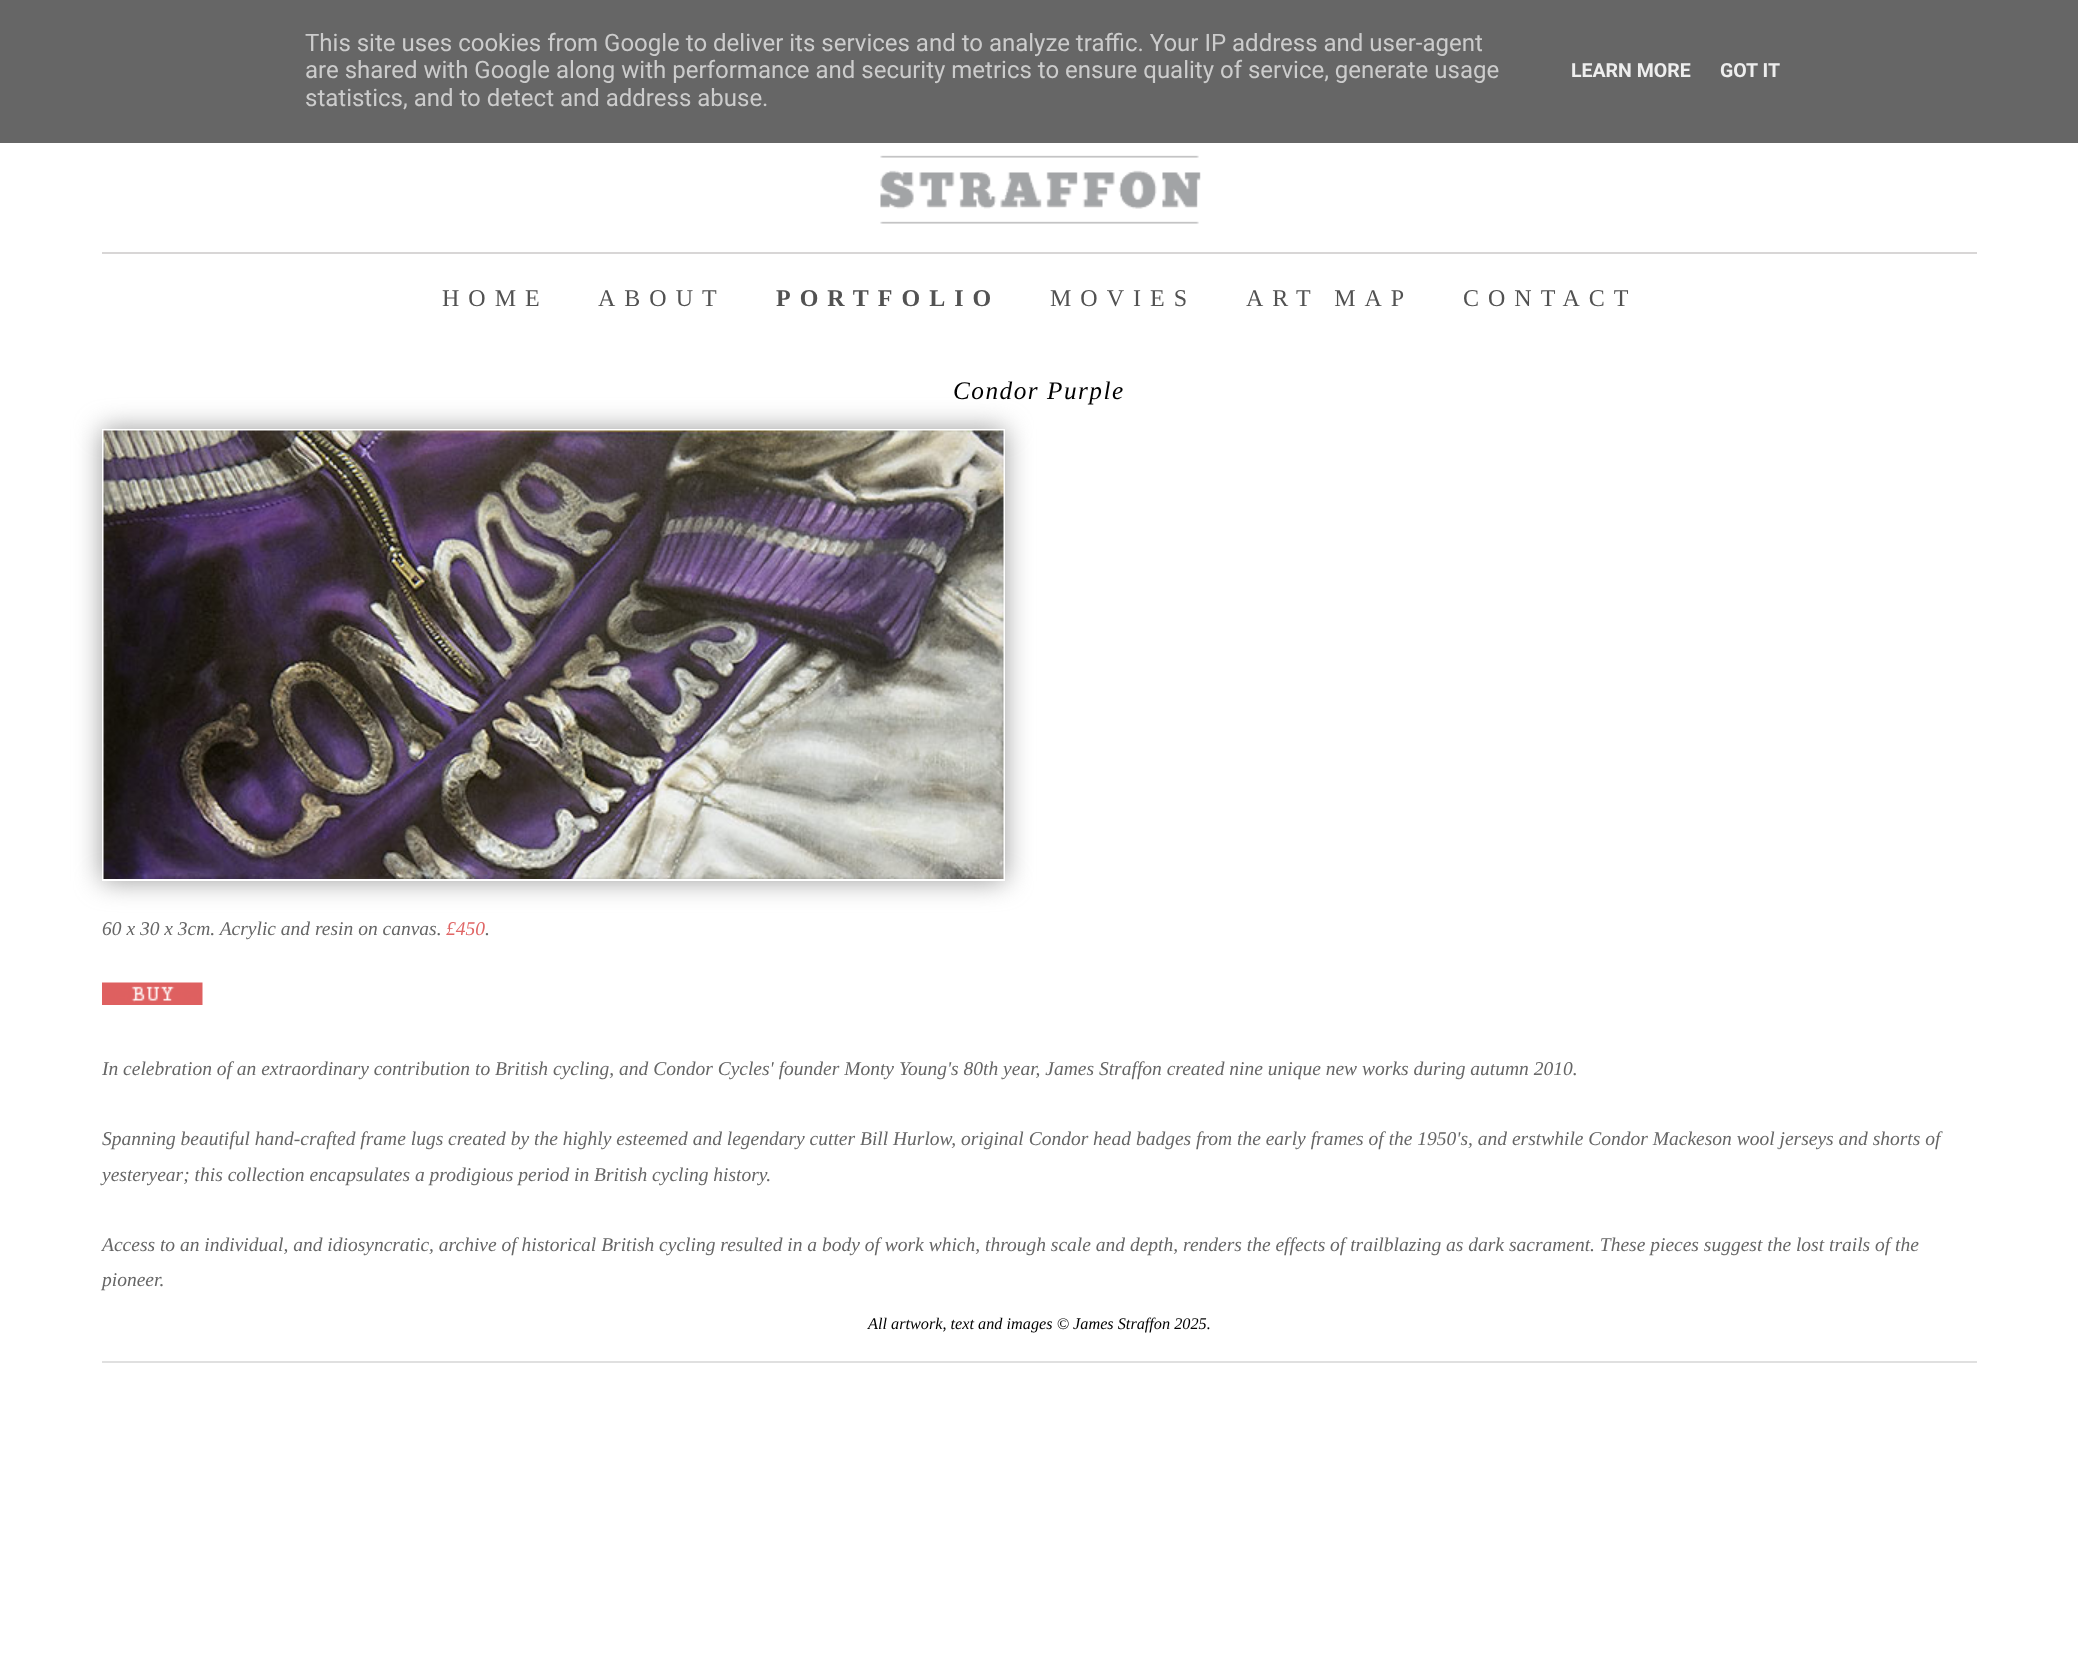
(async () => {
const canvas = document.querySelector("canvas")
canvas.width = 2078
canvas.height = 1660
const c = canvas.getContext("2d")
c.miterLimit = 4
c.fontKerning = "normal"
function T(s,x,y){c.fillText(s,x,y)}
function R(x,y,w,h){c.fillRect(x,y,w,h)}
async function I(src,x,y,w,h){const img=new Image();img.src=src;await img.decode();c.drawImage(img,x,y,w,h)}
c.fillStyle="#fff"
R(0,0,2078,1660)
c.fillStyle="#666"
R(0,0,2078,143)
c.font="24px Roboto"
c.fillStyle="#ccc"
T("This site uses cookies from Google to deliver its services and to analyze traffic. Your IP address and user-agent",305,51)
T("are shared with Google along with performance and security metrics to ensure quality of service, generate usage",305,78)
T("statistics, and to detect and address abuse.",305,106)
c.font="bold 19.5px Roboto"
c.fillStyle="#eee"
T("LEARN MORE",1571,77)
T("GOT IT",1720,77)
c.fillStyle="#d8d6d6"
R(102,252,1875,2)
await I("1.png",880,143,321,81)
c.letterSpacing="9px"
c.font="24px Liberation Serif"
c.fillStyle="#525252"
T("HOME",442,306)
T("ABOUT",598,306)
c.font="bold 24px Liberation Serif"
T("PORTFOLIO",776,306)
c.font="24px Liberation Serif"
T("MOVIES",1050,306)
T("ART MAP",1246,306)
T("CONTACT",1463,306)
c.fillStyle="#e0e0e0"
R(102,1361,1875,2)
c.fillStyle="#999"
c.filter="blur(13.5px)"
c.beginPath()
c.rect(102,429,903,452)
c.fill()
c.filter="none"
c.letterSpacing="1.5px"
c.font="italic 25.25px Liberation Serif"
c.fillStyle="#000"
T("Condor Purple",953,399)
c.fillStyle="#fff"
R(102,429,903,452)
await I("2.png",103,430,901,449)
c.letterSpacing="0px"
c.font="italic 19.5px Liberation Serif"
c.fillStyle="#666"
T("60 x 30 x 3cm. Acrylic and resin on canvas.",102,935)
c.fillStyle="#e06666"
T("£450",446,935)
c.fillStyle="#666"
T(".",485,935)
await I("3.png",102,982,101,23)
T("In celebration of an extraordinary contribution to British cycling, and Condor Cycles' founder Monty Young's 80th year, James Straffon created nine unique new works during autumn 2010.",102,1075)
T("Spanning beautiful hand-crafted frame lugs created by the highly esteemed and legendary cutter Bill Hurlow, original Condor head badges from the early frames of the 1950's, and erstwhile Condor Mackeson wool jerseys and shorts of",102,1145)
T("yesteryear; this collection encapsulates a prodigious period in British cycling history.",102,1181)
T("Access to an individual, and idiosyncratic, archive of historical British cycling resulted in a body of work which, through scale and depth, renders the effects of trailblazing as dark sacrament. These pieces suggest the lost trails of the",102,1251)
T("pioneer.",102,1286)
c.font="italic 16.25px Liberation Serif"
c.fillStyle="#000"
T("All artwork, text and images © James Straffon 2025.",868,1329)
})()
